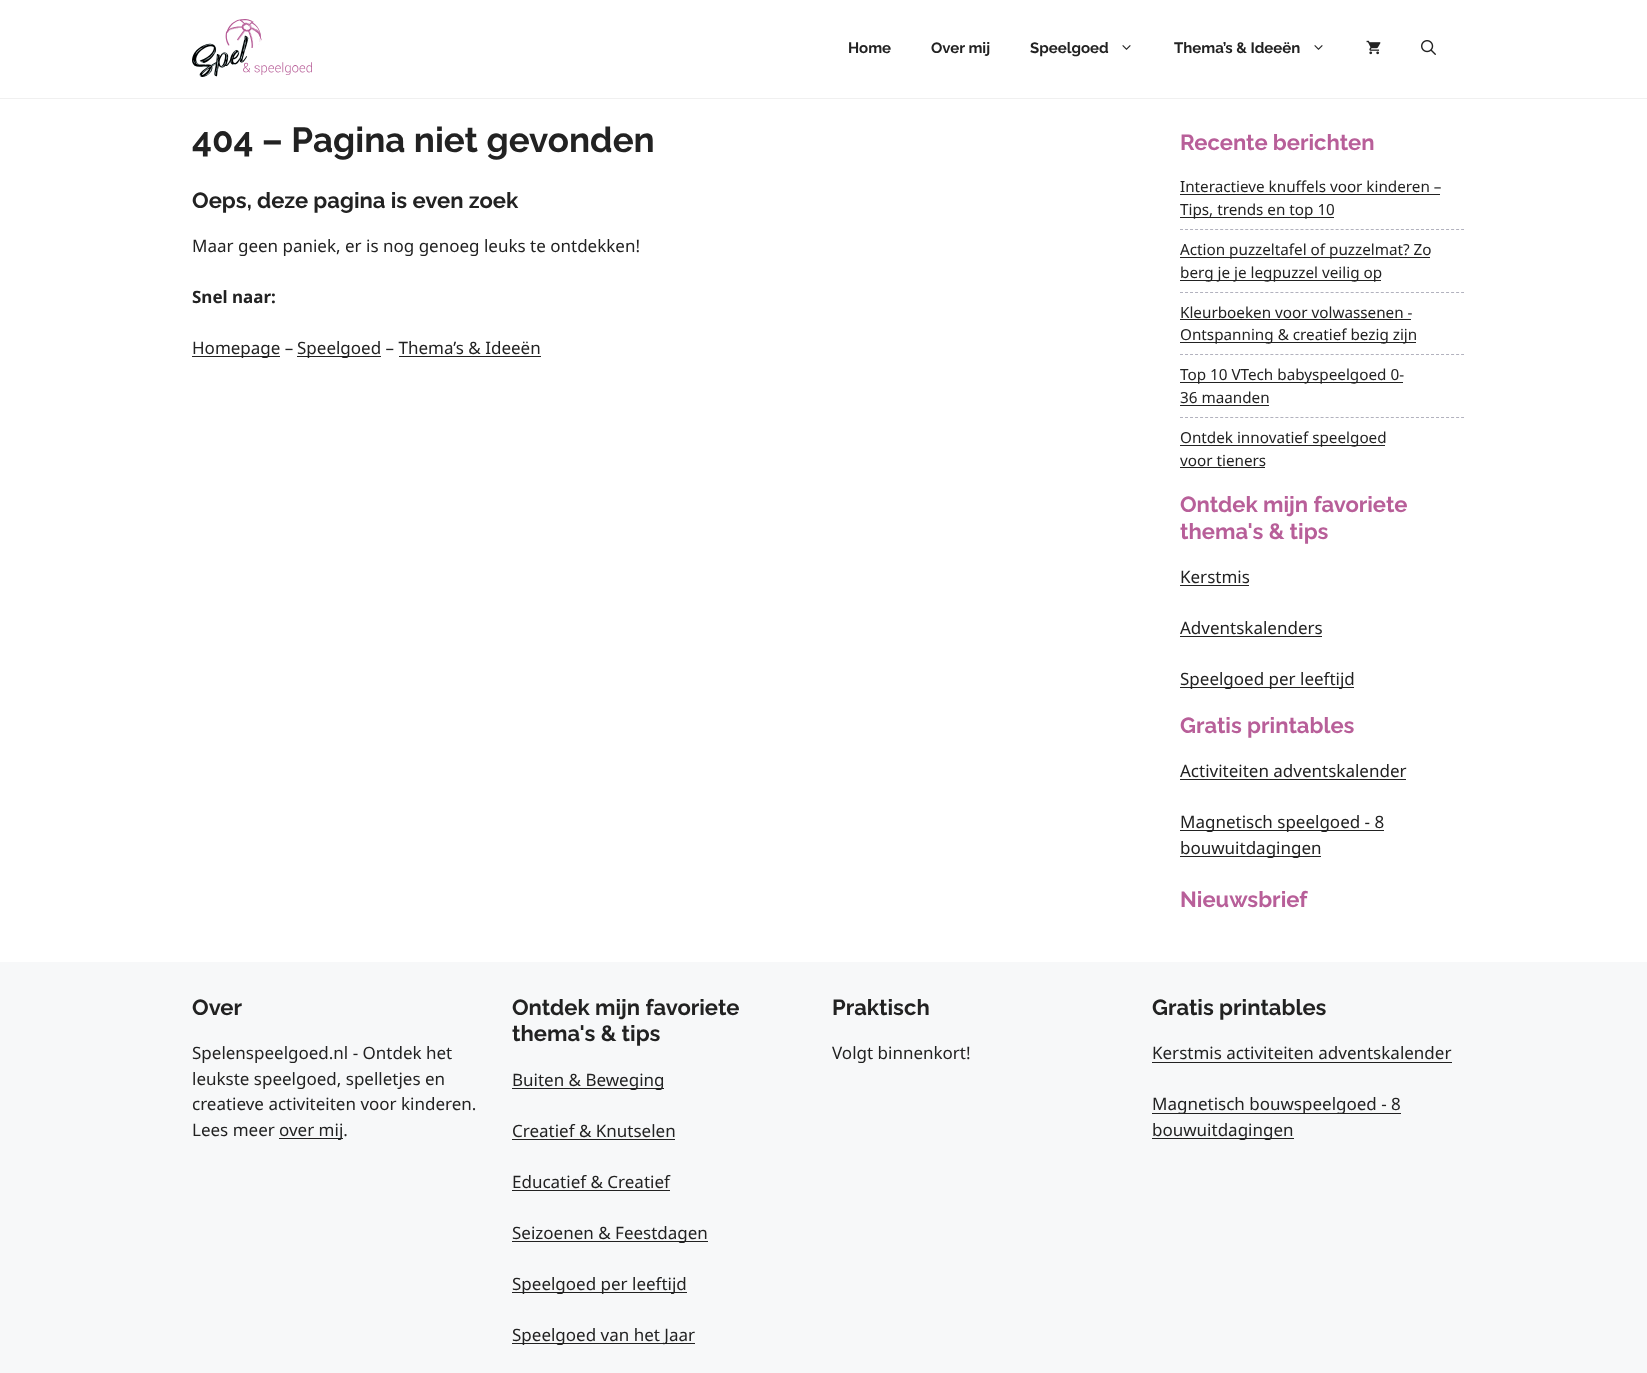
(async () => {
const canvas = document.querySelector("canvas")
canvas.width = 1647
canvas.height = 1373
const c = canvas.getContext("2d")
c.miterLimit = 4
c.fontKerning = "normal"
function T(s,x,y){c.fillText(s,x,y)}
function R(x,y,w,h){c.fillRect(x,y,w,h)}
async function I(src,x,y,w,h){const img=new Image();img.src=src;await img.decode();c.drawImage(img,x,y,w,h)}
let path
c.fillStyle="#fff"
R(0,0,1647,1373)
c.fillStyle="#f0f0f0"
R(0,98,1647,1)
await I("1.png",192,19,120,58)
c.font="bold 15px Raleway"
c.fillStyle="#222"
T("Home",848,53)
T("Over mij",931,53)
T("Speelgoed",1030,53)
await I("2.png",1122,45,9,5)
T("Thema’s & Ideeën",1174,53)
await I("2.png",1314,45,9,5)
await I("3.png",1366,40,15,15)
await I("4.png",1421,40,15,15)
c.font="bold 35px Raleway"
T("404 – Pagina niet gevonden",192,152)
c.font="bold 22px Raleway"
T("Oeps, deze pagina is even zoek",192,208)
c.font="17px Noto Sans"
T("Maar geen paniek, er is nog genoeg leuks te ontdekken!",192,252)
c.font="bold 17px Noto Sans"
T("Snel naar:",192,303)
R(192,356,88,1)
c.font="17px Noto Sans"
T("Homepage –",192,354)
R(297,356,84,1)
T("Speelgoed – Thema’s & Ideeën",297,354)
R(399,356,142,1)
c.font="bold 22px Raleway"
c.fillStyle="#b85f99"
T("Recente berichten",1180,150)
path = new Path2D("M1180 229.5h284")
c.strokeStyle="#b2b2be"
c.setLineDash([3,2.02])
c.stroke(path)
c.font="15.25px Noto Sans"
c.fillStyle="#222"
T("Interactieve knuffels voor kinderen –",1180,192)
R(1180,194,260,1)
R(1180,217,154,1)
T("Tips, trends en top 10",1180,215)
path = new Path2D("M1180 292.5h284")
c.stroke(path)
R(1180,257,250,1)
T("Action puzzeltafel of puzzelmat? Zo",1180,255)
R(1180,280,201,1)
T("berg je je legpuzzel veilig op",1180,278)
path = new Path2D("M1180 354.5h284")
c.stroke(path)
T("Kleurboeken voor volwassenen -",1180,318)
R(1180,319,231,1)
R(1180,342,236,1)
T("Ontspanning & creatief bezig zijn",1180,340)
path = new Path2D("M1180 417.5h284")
c.stroke(path)
R(1180,382,223,1)
T("Top 10 VTech babyspeelgoed 0-",1180,380)
T("36 maanden",1180,403)
R(1180,405,89,1)
R(1180,445,205,1)
T("Ontdek innovatief speelgoed",1180,443)
T("voor tieners",1180,466)
R(1180,467,85,1)
c.font="bold 22px Raleway"
c.fillStyle="#b85f99"
T("Ontdek mijn favoriete",1180,512)
T("thema's & tips",1180,539)
c.font="17px Noto Sans"
c.fillStyle="#222"
T("Kerstmis",1180,583)
R(1180,585,69,1)
T("Adventskalenders",1180,634)
R(1180,636,142,1)
R(1180,687,174,1)
T("Speelgoed per leeftijd",1180,685)
c.font="bold 22px Raleway"
c.fillStyle="#b85f99"
T("Gratis printables",1180,733)
c.font="17px Noto Sans"
c.fillStyle="#222"
T("Activiteiten adventskalender",1180,777)
R(1180,779,226,1)
R(1180,830,204,1)
T("Magnetisch speelgoed - 8",1180,828)
R(1180,856,141,1)
T("bouwuitdagingen",1180,854)
c.font="bold 22px Raleway"
c.fillStyle="#b85f99"
T("Nieuwsbrief",1180,907)
c.fillStyle="#f7f8f9"
R(0,962,1647,411)
c.fillStyle="#222"
T("Over",192,1015)
c.font="17px Noto Sans"
T("Spelenspeelgoed.nl - Ontdek het",192,1059)
T("leukste speelgoed, spelletjes en",192,1085)
T("creatieve activiteiten voor kinderen.",192,1110)
T("Lees meer",192,1136)
R(279,1138,64,1)
T("over mij.",279,1136)
c.font="bold 22px Raleway"
T("Ontdek mijn favoriete",512,1015)
T("thema's & tips",512,1041)
R(512,1088,152,1)
c.font="17px Noto Sans"
T("Buiten & Beweging",512,1086)
T("Creatief & Knutselen",512,1137)
R(512,1139,163,1)
T("Educatief & Creatief",512,1188)
R(512,1190,158,1)
R(512,1241,196,1)
T("Seizoenen & Feestdagen",512,1239)
R(512,1292,175,1)
T("Speelgoed per leeftijd",512,1290)
R(512,1343,183,1)
T("Speelgoed van het Jaar",512,1341)
c.font="bold 22px Raleway"
T("Praktisch",832,1015)
c.font="17px Noto Sans"
T("Volgt binnenkort!",832,1059)
c.font="bold 22px Raleway"
T("Gratis printables",1152,1015)
c.font="17px Noto Sans"
T("Kerstmis activiteiten adventskalender",1152,1059)
R(1152,1062,300,1)
R(1152,1113,249,1)
T("Magnetisch bouwspeelgoed - 8",1152,1110)
R(1152,1138,142,1)
T("bouwuitdagingen",1152,1136)
})()
